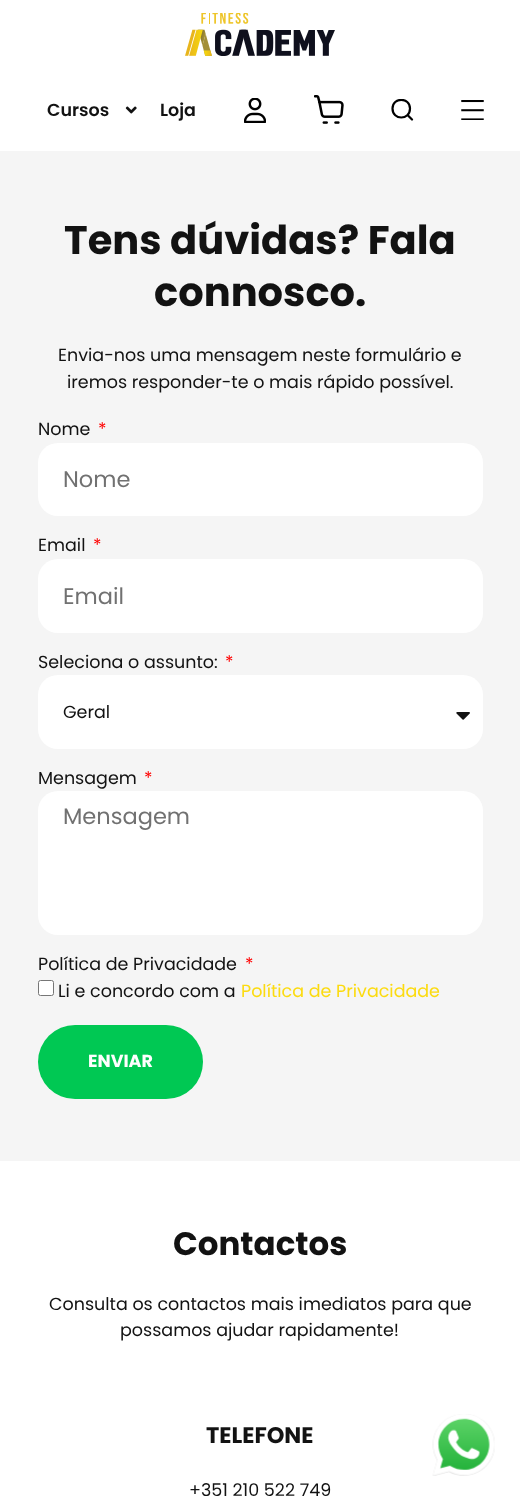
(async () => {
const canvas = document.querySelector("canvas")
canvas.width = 520
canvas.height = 1508
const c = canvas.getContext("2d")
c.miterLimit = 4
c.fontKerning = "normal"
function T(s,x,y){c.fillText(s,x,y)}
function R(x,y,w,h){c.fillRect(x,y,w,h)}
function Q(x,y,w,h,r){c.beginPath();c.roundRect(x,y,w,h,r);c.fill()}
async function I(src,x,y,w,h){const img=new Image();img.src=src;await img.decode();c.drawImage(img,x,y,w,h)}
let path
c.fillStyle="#fff"
R(0,0,520,1508)
await I("1.png",185,13,150,43)
c.font="600 17.5px Poppins"
c.fillStyle="#121212"
T("Cursos",47,116)
await I("2.png",125,106,12,8)
T("Loja",160,116)
await I("3.png",244,98,22,25)
await I("4.png",314,95,30,29)
c.save()
c.beginPath()
c.rect(391,99,23,22)
c.clip()
path = new Path2D("M412 119.5l-4.5-4.5m2.5-6.5c0 12-17.5 12-17.5 0c0-11.5 17.5-11.5 17.5 0z")
c.strokeStyle="#000"
c.lineWidth=2.2
c.lineCap="round"
c.stroke(path)
c.restore()
await I("5.png",461,100,23,20)
c.fillStyle="#f5f5f5"
R(0,151,520,1010)
c.font="bold 40px Poppins"
c.fillStyle="#121212"
T("Tens dúvidas? Fala",64,254)
T("connosco.",154,306)
c.font="17.5px Poppins"
T("Envia-nos uma mensagem neste formulário e",58,361)
T("iremos responder-te o mais rápido possível.",67,388)
T("Nome",38,435)
c.fillStyle="#f00"
T("*",98,435)
c.fillStyle="#fff"
Q(38,443,445,73,20)
c.font="22.5px Poppins"
c.fillStyle="#717171"
T("Nome",63,487)
c.font="17.5px Poppins"
c.fillStyle="#121212"
T("Email",38,551)
c.fillStyle="#f00"
T("*",93,551)
c.fillStyle="#fff"
Q(38,559,445,74,20)
c.font="22.5px Poppins"
c.fillStyle="#717171"
T("Email",63,604)
c.font="17.5px Poppins"
c.fillStyle="#121212"
T("Seleciona o assunto:",38,668)
c.fillStyle="#f00"
T("*",225,668)
c.fillStyle="#fff"
Q(38,675,445,74,20)
c.fillStyle="#121212"
T("Geral",63,718)
await I("6.png",456,712,14,8)
T("Mensagem",38,784)
c.fillStyle="#f00"
T("*",144,784)
c.fillStyle="#fff"
Q(38,791,445,144,20)
c.font="22.5px Poppins"
c.fillStyle="#717171"
T("Mensagem",63,824)
c.font="17.5px Poppins"
c.fillStyle="#121212"
T("Política de Privacidade",38,970)
c.fillStyle="#f00"
T("*",245,970)
c.fillStyle="#fff"
c.beginPath()
c.roundRect(38.5,980.5,15,15,2)
c.fill()
c.strokeStyle="#767676"
c.stroke()
c.fillStyle="#121212"
T("Li e concordo com a",58,997)
c.fillStyle="#fcdb0f"
T("Política de Privacidade",241,997)
c.fillStyle="#00c853"
Q(38,1025,165,74,37)
c.font="bold 17.5px Poppins"
c.fillStyle="#fff"
T("ENVIAR",88,1067)
c.font="bold 32.5px Poppins"
c.fillStyle="#121212"
T("Contactos",173,1255)
c.font="17.5px Poppins"
T("Consulta os contactos mais imediatos para que",49,1310)
T("possamos ajudar rapidamente!",120,1336)
c.font="bold 22.5px Poppins"
T("TELEFONE",206,1443)
c.font="17.5px Poppins"
T("+351 210 522 749",189,1496)
await I("7.png",432,1414,63,62)
})()
